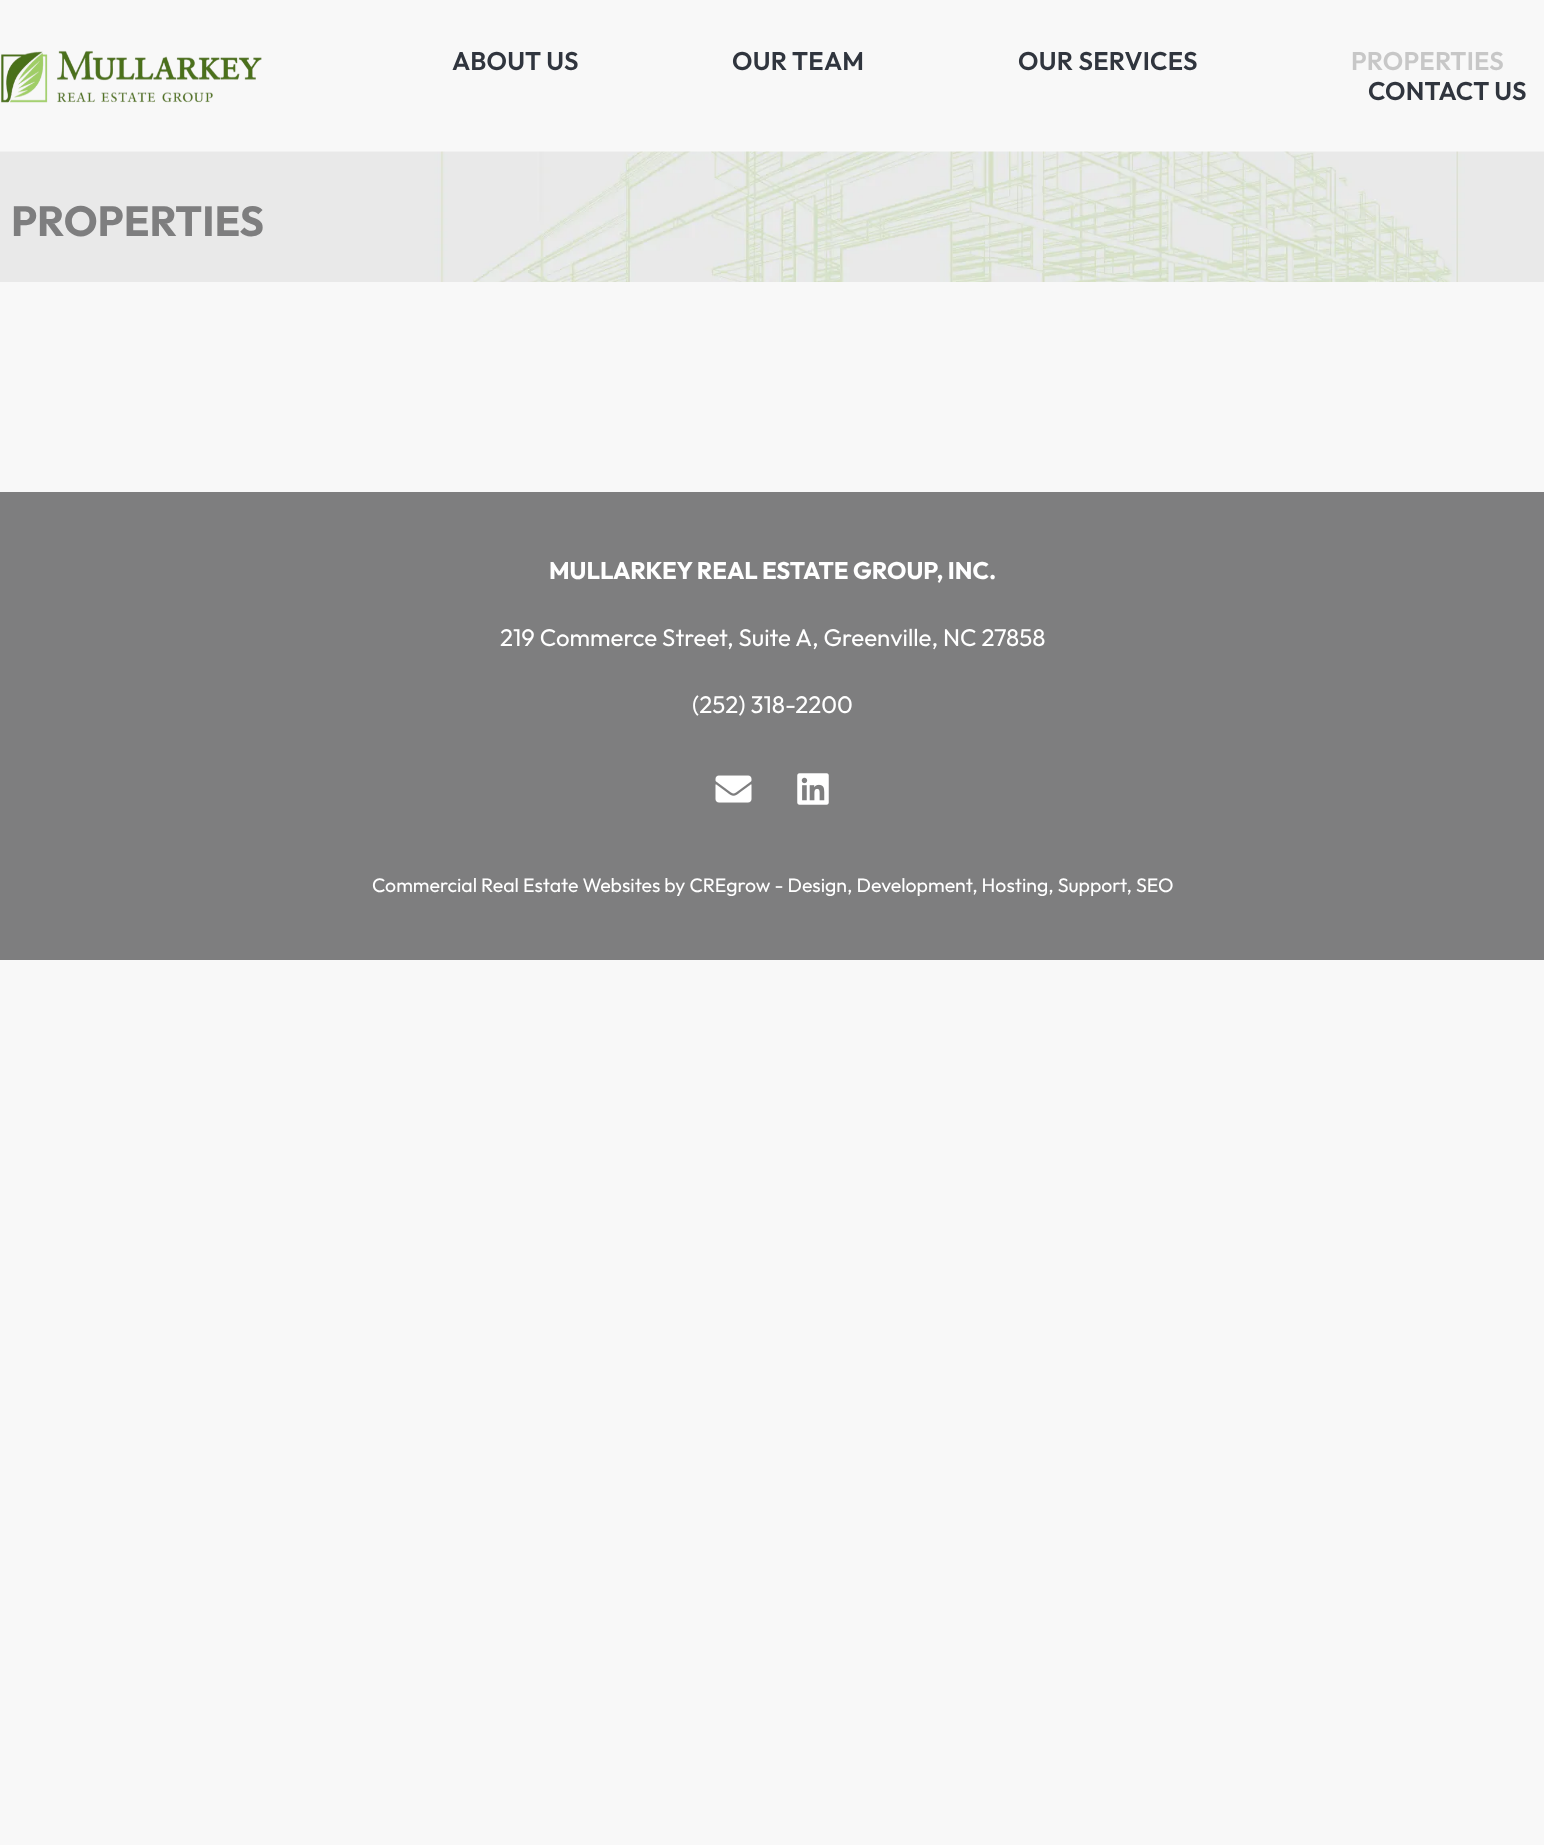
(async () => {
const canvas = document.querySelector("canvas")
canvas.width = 1544
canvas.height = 1845
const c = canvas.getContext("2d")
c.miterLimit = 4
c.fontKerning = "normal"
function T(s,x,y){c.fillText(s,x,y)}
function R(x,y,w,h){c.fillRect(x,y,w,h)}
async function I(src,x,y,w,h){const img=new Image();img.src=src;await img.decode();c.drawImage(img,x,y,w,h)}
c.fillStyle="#f8f8f8"
R(0,0,1544,1845)
await I("1.png",1,50,261,53)
c.letterSpacing="0.25px"
c.font="600 25.5px Outfit"
c.fillStyle="#30353e"
T("ABOUT US",452,70)
T("OUR TEAM",732,70)
T("OUR SERVICES",1018,70)
c.fillStyle="#c7c7c7"
T("PROPERTIES",1351,70)
c.fillStyle="#30353e"
T("CONTACT US",1368,100)
await I("2.png",0,151,1544,131)
c.letterSpacing="0px"
c.font="bold 42px Outfit"
c.fillStyle="#7e7e7f"
T("PROPERTIES",11,236)
R(0,492,1544,468)
c.font="bold 24px Outfit"
c.fillStyle="#fff"
T("MULLARKEY REAL ESTATE GROUP, INC.",549,579)
c.font="24px Outfit"
T("219 Commerce Street, Suite A, Greenville, NC 27858",500,646)
T("(252) 318-2200",692,713)
await I("3.png",715,775,37,28)
await I("4.png",797,773,32,32)
c.font="19.5px Outfit"
T("Commercial Real Estate Websites by CREgrow - Design, Development, Hosting, Support, SEO",372,892)
})()
